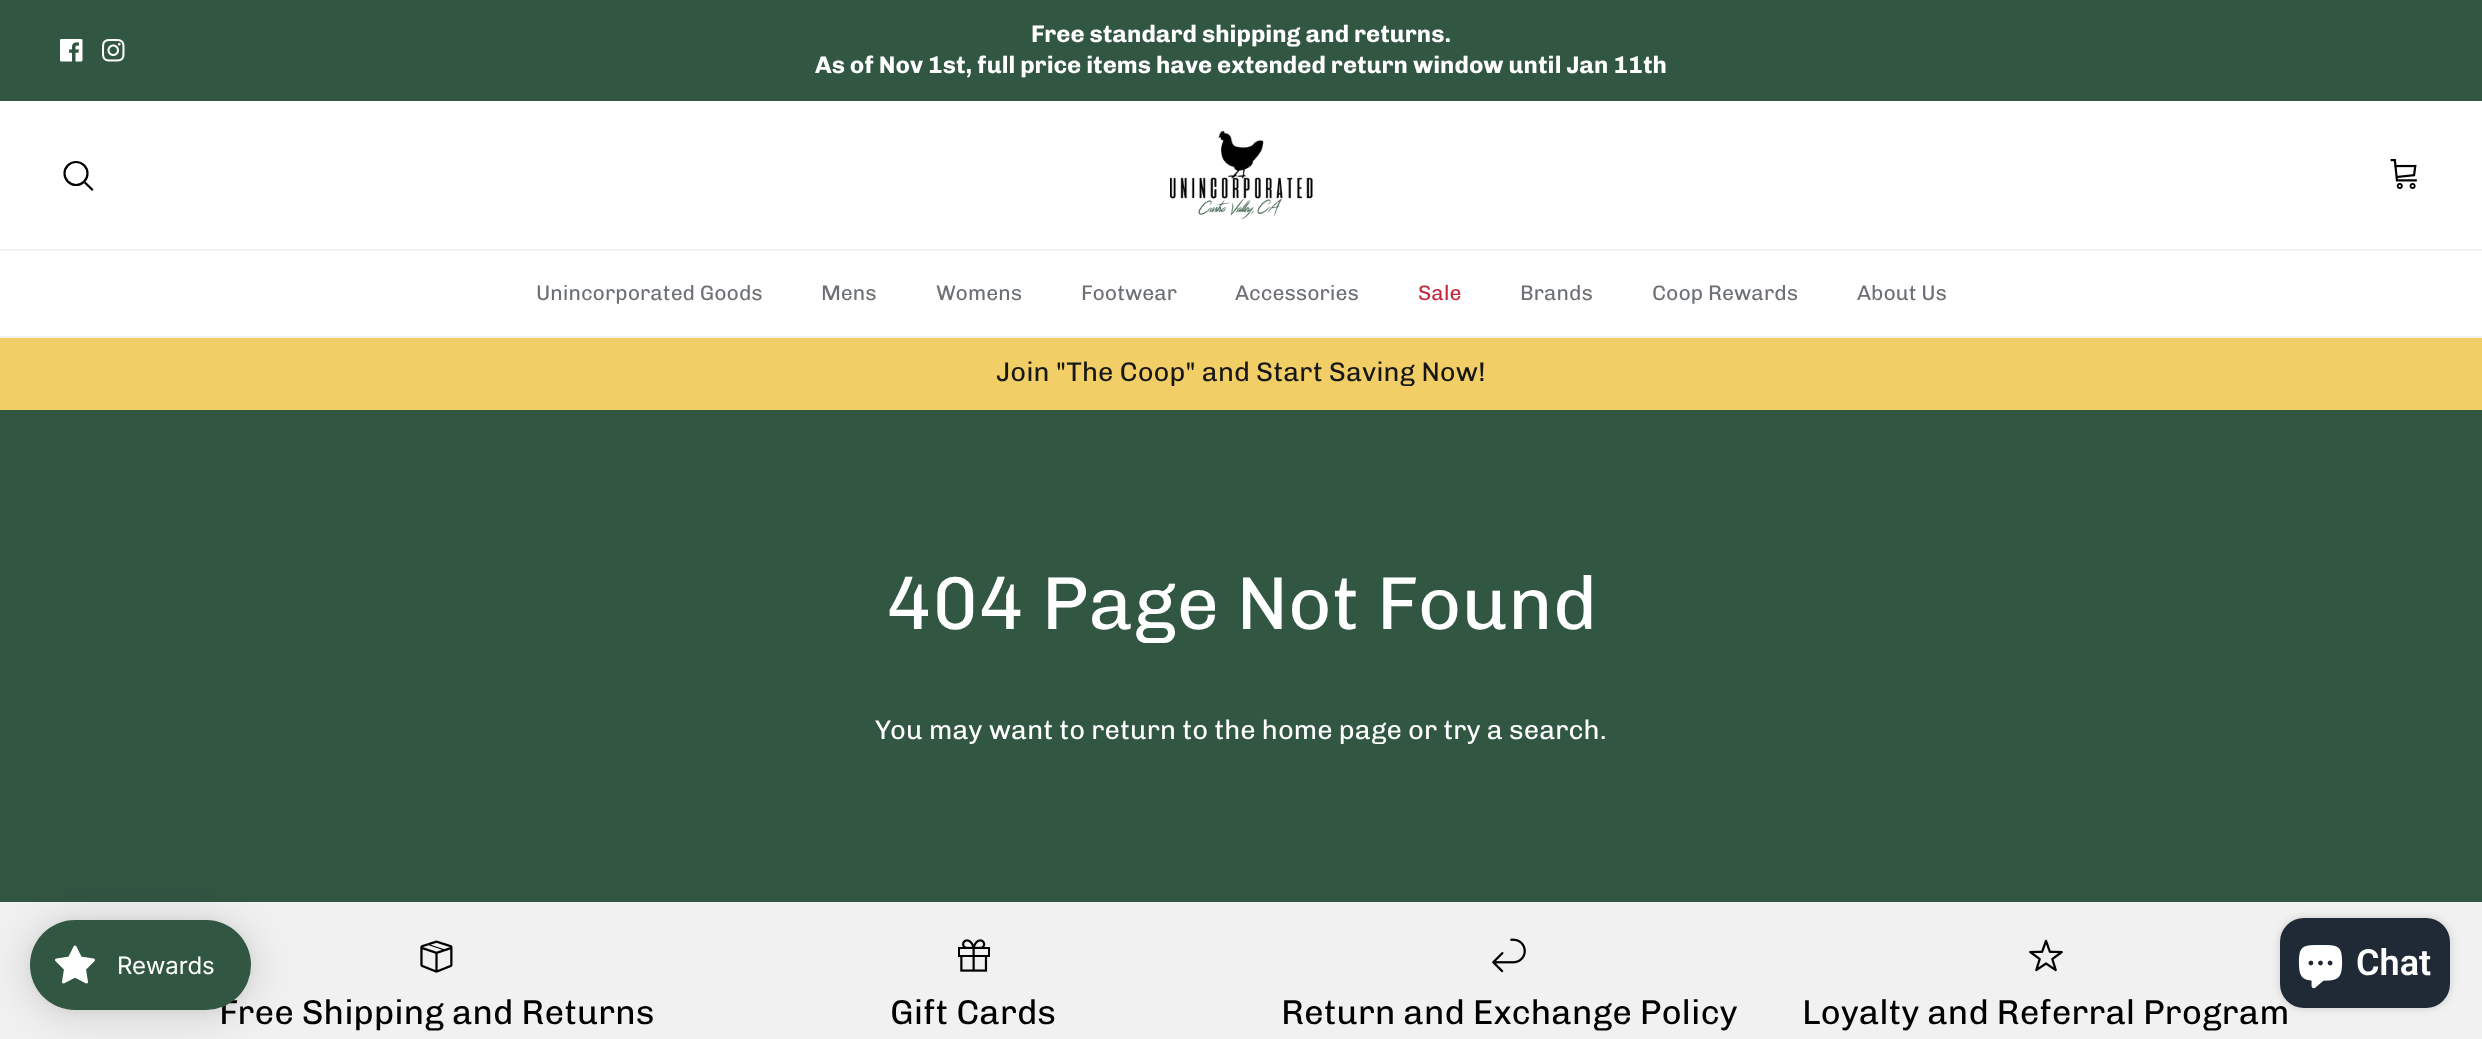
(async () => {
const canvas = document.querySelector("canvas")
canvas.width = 2482
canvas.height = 1039
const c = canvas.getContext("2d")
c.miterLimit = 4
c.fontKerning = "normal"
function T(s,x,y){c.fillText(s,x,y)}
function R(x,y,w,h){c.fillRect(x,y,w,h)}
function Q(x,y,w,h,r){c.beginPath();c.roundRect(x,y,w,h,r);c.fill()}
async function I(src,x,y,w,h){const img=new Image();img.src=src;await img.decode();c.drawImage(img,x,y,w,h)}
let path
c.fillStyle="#315642"
R(0,0,2482,1039)
await I("1.png",60,39,23,23)
await I("2.png",102,39,23,23)
c.font="bold 24px Chivo"
c.fillStyle="#fff"
T("Free standard shipping and returns.",1031,42)
T("As of Nov 1st, full price items have extended return window until Jan 11th",815,73)
R(0,101,2482,148)
c.fillStyle="#f1f1f1"
R(0,249,2482,2)
c.beginPath()
c.arc(76,173.5,11.5,0,7)
c.strokeStyle="#000"
c.lineWidth=2.2
c.stroke()
path = new Path2D("M85.5 183l6.5 6.5")
c.lineCap="square"
c.stroke(path)
await I("3.png",1170,130,143,89)
await I("4.png",2390,159,27,30)
R(0,336,2482,2)
c.fillStyle="#fff"
R(0,251,2482,85)
c.font="21px Chivo"
c.fillStyle="#6d7175"
T("Unincorporated Goods",536,300)
T("Mens",821,300)
T("Womens",936,300)
T("Footwear",1081,300)
T("Accessories",1235,300)
c.fillStyle="#c4293d"
T("Sale",1418,300)
c.fillStyle="#6d7175"
T("Brands",1520,300)
T("Coop Rewards",1652,300)
T("About Us",1857,300)
c.fillStyle="#f1cf66"
R(0,338,2482,72)
c.font="27px Chivo"
c.fillStyle="#171717"
T("Join \"The Coop\" and Start Saving Now!",996,381)
c.font="75px Chivo"
c.fillStyle="#fff"
T("404 Page Not Found",886,629)
c.font="27px Chivo"
T("You may want to return to the home page or try a search.",875,739)
c.fillStyle="#f1f1f1"
R(0,902,2482,137)
c.fillStyle="#00000026"
c.filter="blur(22.5px)"
c.beginPath()
c.roundRect(30,923,221,90,45)
c.fill()
c.filter="none"
c.fillStyle="#0000000d"
c.filter="blur(4.5px)"
c.beginPath()
c.roundRect(30,921,221,90,45)
c.fill()
c.filter="none"
c.font="34.5px Chivo"
c.fillStyle="#000"
T("Free Shipping and Returns",219,1024)
c.fillStyle="#315642"
Q(30,920,221,90,45)
await I("5.png",55,945,40,39)
c.font="24px Inter"
c.fillStyle="#fff"
T("Rewards",117,974)
c.fillStyle="#00000026"
c.filter="blur(4px)"
c.beginPath()
c.roundRect(2280,918,170,90,24)
c.fill()
c.filter="none"
c.font="34.5px Chivo"
c.fillStyle="#000"
T("Loyalty and Referral Program",1802,1024)
c.fillStyle="#202a36"
Q(2280,918,170,90,24)
await I("6.png",2298,945,45,44)
c.font="600 36px Roboto"
c.fillStyle="#fff"
T("Chat",2356,975)
await I("7.png",420,940,33,33)
await I("8.png",958,939,32,33)
c.font="34.5px Chivo"
c.fillStyle="#000"
T("Gift Cards",890,1024)
await I("9.png",1492,938,34,35)
T("Return and Exchange Policy",1281,1024)
await I("10.png",2029,939,34,33)
})()
